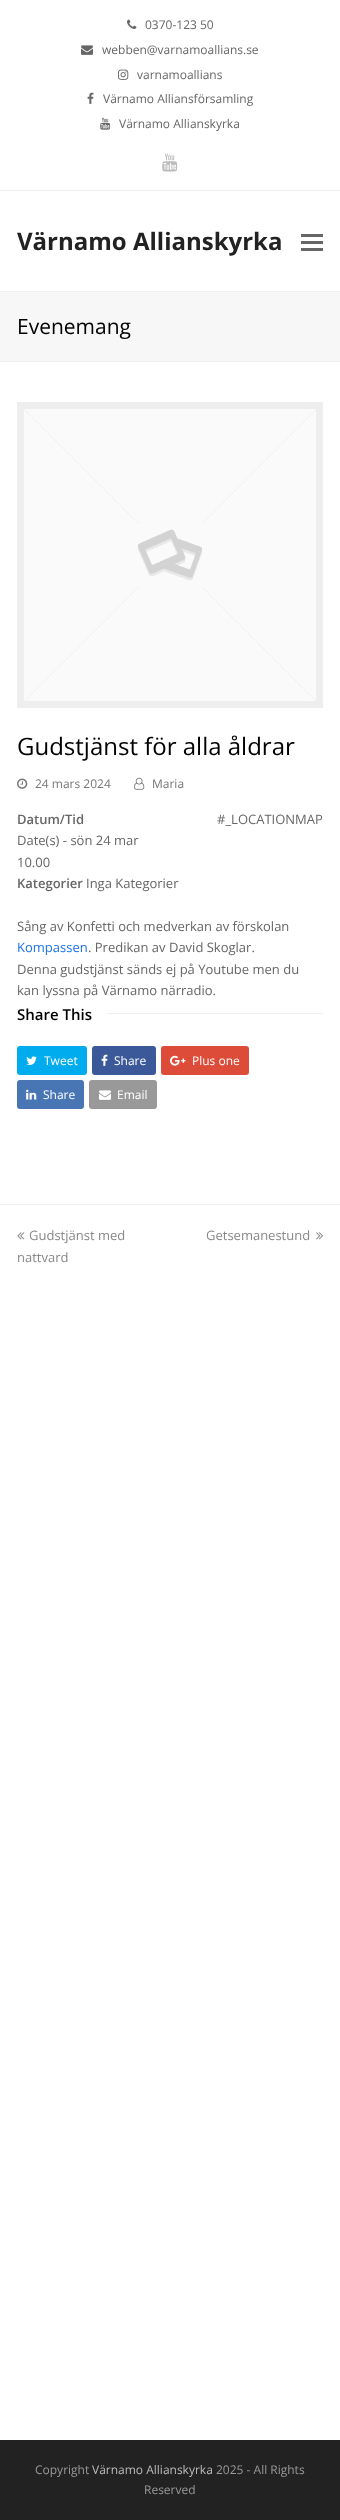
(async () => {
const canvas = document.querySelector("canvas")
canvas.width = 340
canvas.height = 2520
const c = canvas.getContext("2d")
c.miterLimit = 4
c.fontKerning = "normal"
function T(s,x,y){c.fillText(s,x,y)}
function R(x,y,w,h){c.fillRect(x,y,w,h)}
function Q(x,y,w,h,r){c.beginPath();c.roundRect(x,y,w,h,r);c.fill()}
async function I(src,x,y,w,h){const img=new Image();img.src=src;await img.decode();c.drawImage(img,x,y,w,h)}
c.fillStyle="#fff"
R(0,0,340,2520)
c.fillStyle="#eee"
R(0,190,340,1)
await I("1.png",127,19,10,10)
c.font="12px Open Sans"
c.fillStyle="#666"
T("0370-123 50",145,29)
await I("2.png",81,45,12,10)
T("webben@varnamoallians.se",102,54)
await I("3.png",118,69,11,11)
T("varnamoallians",137,79)
await I("4.png",87,92,7,12)
T("Värnamo Alliansförsamling",103,103)
await I("5.png",100,117,11,13)
T("Värnamo Allianskyrka",119,128)
await I("6.png",162,153,16,19)
c.font="bold 24px Open Sans"
c.fillStyle="#222"
T("Värnamo Allianskyrka",17,250)
c.fillStyle="#666"
R(301,241,22,3)
R(301,234,22,3)
R(301,248,22,3)
c.fillStyle="#f7f7f7"
R(0,292,340,69)
c.fillStyle="#eee"
R(0,291,340,1)
R(0,361,340,1)
c.font="21px Open Sans"
c.fillStyle="#000"
T("Evenemang",17,334)
await I("7.png",17,402,306,306)
c.font="24px Open Sans"
T("Gudstjänst för alla åldrar",17,755)
await I("8.png",17,778,11,11)
c.font="12px Open Sans"
c.fillStyle="#777"
T("24 mars 2024",35,788)
await I("9.png",134,777,11,13)
T("Maria",152,788)
c.font="600 13px Open Sans"
c.fillStyle="#666"
T("Datum/Tid",17,824)
c.font="13px Open Sans"
T("Date(s) - sön 24 mar",17,845)
T("10.00",17,867)
T("#_LOCATIONMAP",217,824)
c.font="600 13px Open Sans"
T("Kategorier",17,888)
c.font="13px Open Sans"
T("Inga Kategorier",86,888)
T("Sång av Konfetti och medverkan av förskolan",17,931)
c.fillStyle="#1a73e8"
T("Kompassen",17,952)
c.fillStyle="#666"
T(". Predikan av David Skoglar.",88,952)
T("Denna gudstjänst sänds ej på Youtube men du",17,974)
T("kan lyssna på Värnamo närradio.",17,995)
c.font="600 15px Open Sans"
c.fillStyle="#000"
T("Share This",17,1020)
c.fillStyle="#eee"
R(107,1013,216,1)
c.fillStyle="#00aced"
Q(17,1046,70,29,3)
await I("10.png",26,1056,11,9)
c.font="12px Open Sans"
c.fillStyle="#fff"
T("Tweet",44,1065)
c.fillStyle="#3b5998"
Q(92,1046,64,29,3)
await I("11.png",101,1054,7,12)
c.fillStyle="#fff"
T("Share",114,1065)
c.fillStyle="#dd4b39"
Q(161,1046,88,29,3)
await I("12.png",170,1055,16,11)
c.fillStyle="#fff"
T("Plus one",192,1065)
c.fillStyle="#4875b4"
Q(17,1080,67,29,3)
await I("13.png",26,1089,11,11)
c.fillStyle="#fff"
T("Share",43,1099)
c.fillStyle="#999"
Q(89,1080,68,29,3)
await I("14.png",99,1090,12,10)
c.fillStyle="#fff"
T("Email",117,1099)
c.fillStyle="#eee"
R(0,1204,340,1)
await I("15.png",17,1232,8,8)
c.font="13px Open Sans"
c.fillStyle="#888"
T("Gudstjänst med",29,1240)
T("nattvard",17,1262)
T("Getsemanestund",206,1240)
await I("16.png",316,1232,7,8)
c.fillStyle="#222"
R(0,2440,340,80)
c.font="12px Open Sans"
c.fillStyle="#999"
T("Copyright",35,2474)
c.fillStyle="#bbb"
T("Värnamo Allianskyrka",92,2474)
c.fillStyle="#999"
T("2025 - All Rights",216,2474)
T("Reserved",144,2494)
})()
